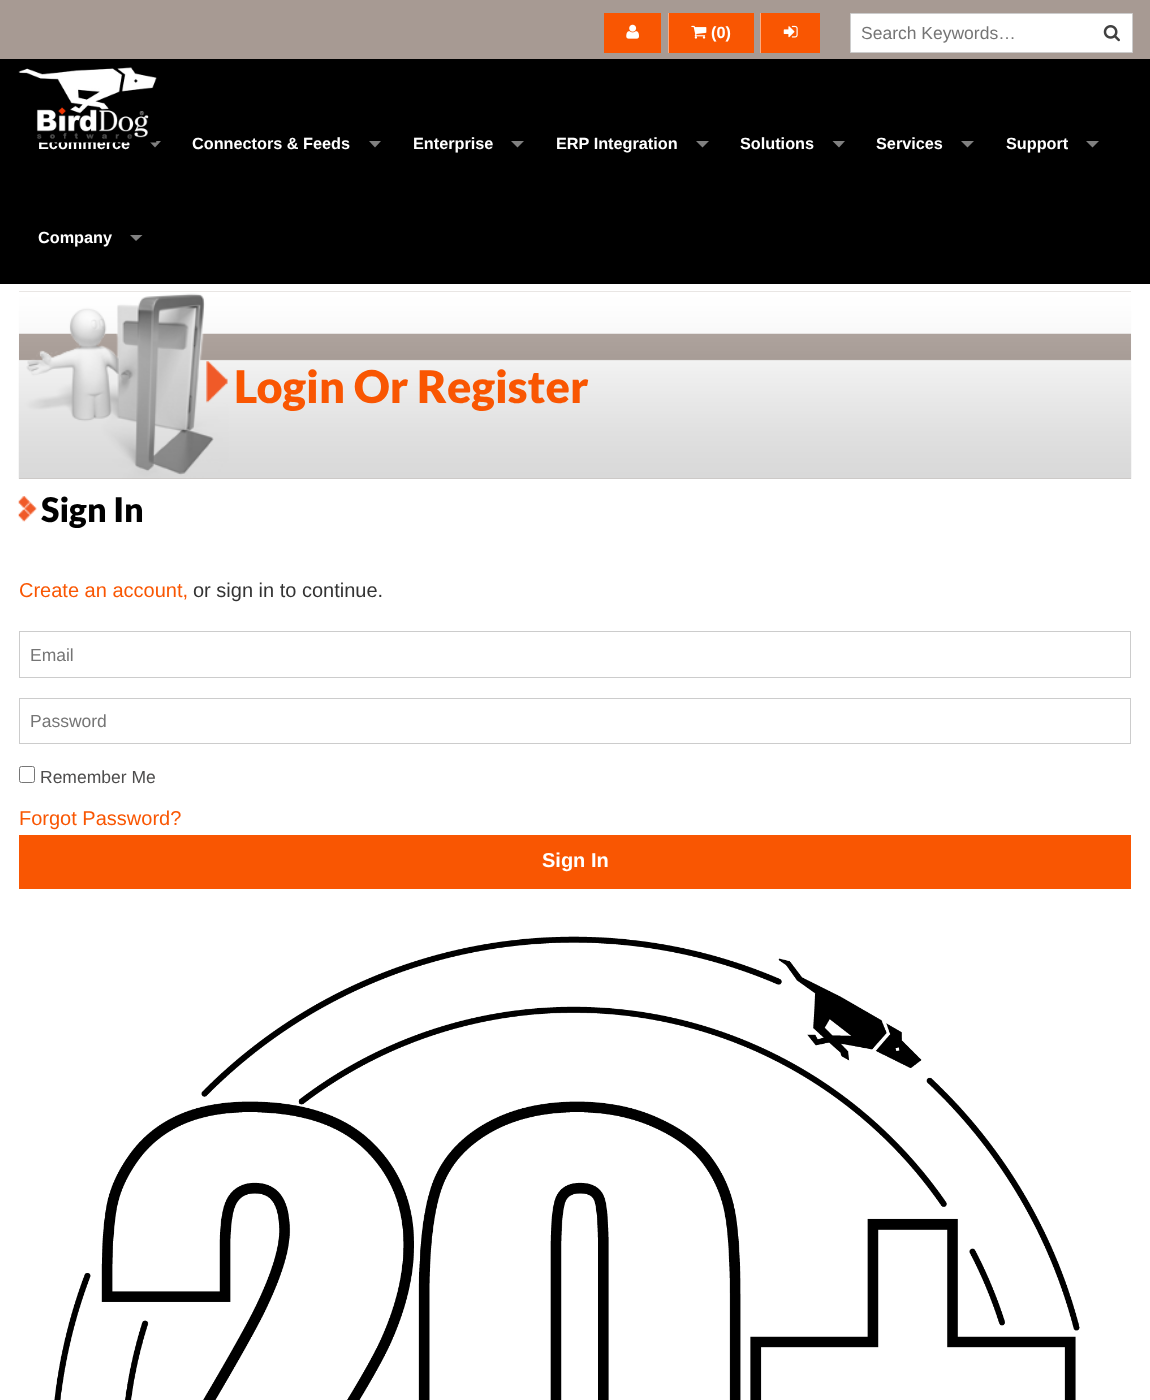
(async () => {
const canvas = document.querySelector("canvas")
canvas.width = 1150
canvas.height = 1400
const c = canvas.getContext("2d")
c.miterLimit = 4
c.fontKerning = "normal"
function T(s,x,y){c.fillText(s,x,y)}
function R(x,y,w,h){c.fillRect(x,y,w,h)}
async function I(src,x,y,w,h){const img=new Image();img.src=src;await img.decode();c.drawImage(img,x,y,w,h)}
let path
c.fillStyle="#000"
R(0,0,1150,1400)
c.fillStyle="#a79a93"
R(0,0,1150,59)
c.fillStyle="#f95602"
R(604,13,57,40)
await I("1.png",626,24,13,15)
R(669,13,85,40)
c.fillStyle="#fcab81"
R(668,13,1,40)
await I("2.png",691,25,16,14)
c.font="bold 16.25px Liberation Sans"
c.fillStyle="#fff"
T("(0)",711,38)
c.fillStyle="#f95602"
R(761,13,59,40)
c.fillStyle="#fcab81"
R(760,13,1,40)
await I("3.png",783,25,15,13)
c.fillStyle="#fff"
c.beginPath()
c.rect(850.5,13.5,282,39)
c.fill()
c.strokeStyle="#ccc"
c.stroke()
c.font="17.5px Liberation Sans"
c.fillStyle="#757575"
T("Search Keywords…",861,39)
await I("4.png",1103,25,17,17)
c.font="bold 16.25px Liberation Sans"
c.fillStyle="#fff"
T("Ecommerce",38,149)
c.fillStyle="#808080"
path = new Path2D("M149 141h12l-6 6.5z")
c.fill(path)
await I("5.png",18,67,139,76)
c.fillStyle="#fff"
T("Connectors & Feeds",192,149)
c.fillStyle="#808080"
path = new Path2D("M369 141h12l-6 6.5z")
c.fill(path)
c.fillStyle="#fff"
T("Enterprise",413,149)
c.fillStyle="#808080"
path = new Path2D("M511 141h13l-6.5 6.5z")
c.fill(path)
c.fillStyle="#fff"
T("ERP Integration",556,149)
c.fillStyle="#808080"
path = new Path2D("M696 141h13l-6.5 6.5z")
c.fill(path)
c.fillStyle="#fff"
T("Solutions",740,149)
c.fillStyle="#808080"
path = new Path2D("M832.5 141h12.5l-6 6.5z")
c.fill(path)
c.fillStyle="#fff"
T("Services",876,149)
c.fillStyle="#808080"
path = new Path2D("M961 141h13l-6.5 6.5z")
c.fill(path)
c.fillStyle="#fff"
T("Support",1006,149)
c.fillStyle="#808080"
path = new Path2D("M1086 141h13l-6.5 6.5z")
c.fill(path)
c.fillStyle="#fff"
T("Company",38,243)
c.fillStyle="#808080"
path = new Path2D("M130 235h12.5l-6.5 6z")
c.fill(path)
c.fillStyle="#fff"
R(0,284,1150,1116)
c.fillStyle="#a79a93"
R(19,291,1112,188)
await I("6.png",18,291,1114,188)
await I("7.png",206,361,22,42)
c.font="900 45px Lato"
c.fillStyle="#f95602"
T("Login Or Register",234,403)
await I("8.png",18,496,19,26)
c.font="900 34px Lato"
c.fillStyle="#000"
T("Sign In",41,522)
c.font="20px Liberation Sans"
c.fillStyle="#f95602"
T("Create an account,",19,597)
c.fillStyle="#333"
T("or sign in to continue.",193,597)
c.strokeRect(19.5,631.5,1111,46)
c.font="17.5px Liberation Sans"
c.fillStyle="#757575"
T("Email",30,661)
c.strokeRect(19.5,698.5,1111,45)
T("Password",30,727)
c.beginPath()
c.roundRect(19.5,766.5,15,16,2)
c.strokeStyle="#767676"
c.stroke()
c.fillStyle="#4d4c4c"
T("Remember Me",40,783)
c.font="20px Liberation Sans"
c.fillStyle="#f95602"
T("Forgot Password?",19,825)
R(19,835,1112,54)
c.font="bold 20px Liberation Sans"
c.fillStyle="#fff"
T("Sign In",542,867)
await I("9.png",54,936,1026,464)
})()
